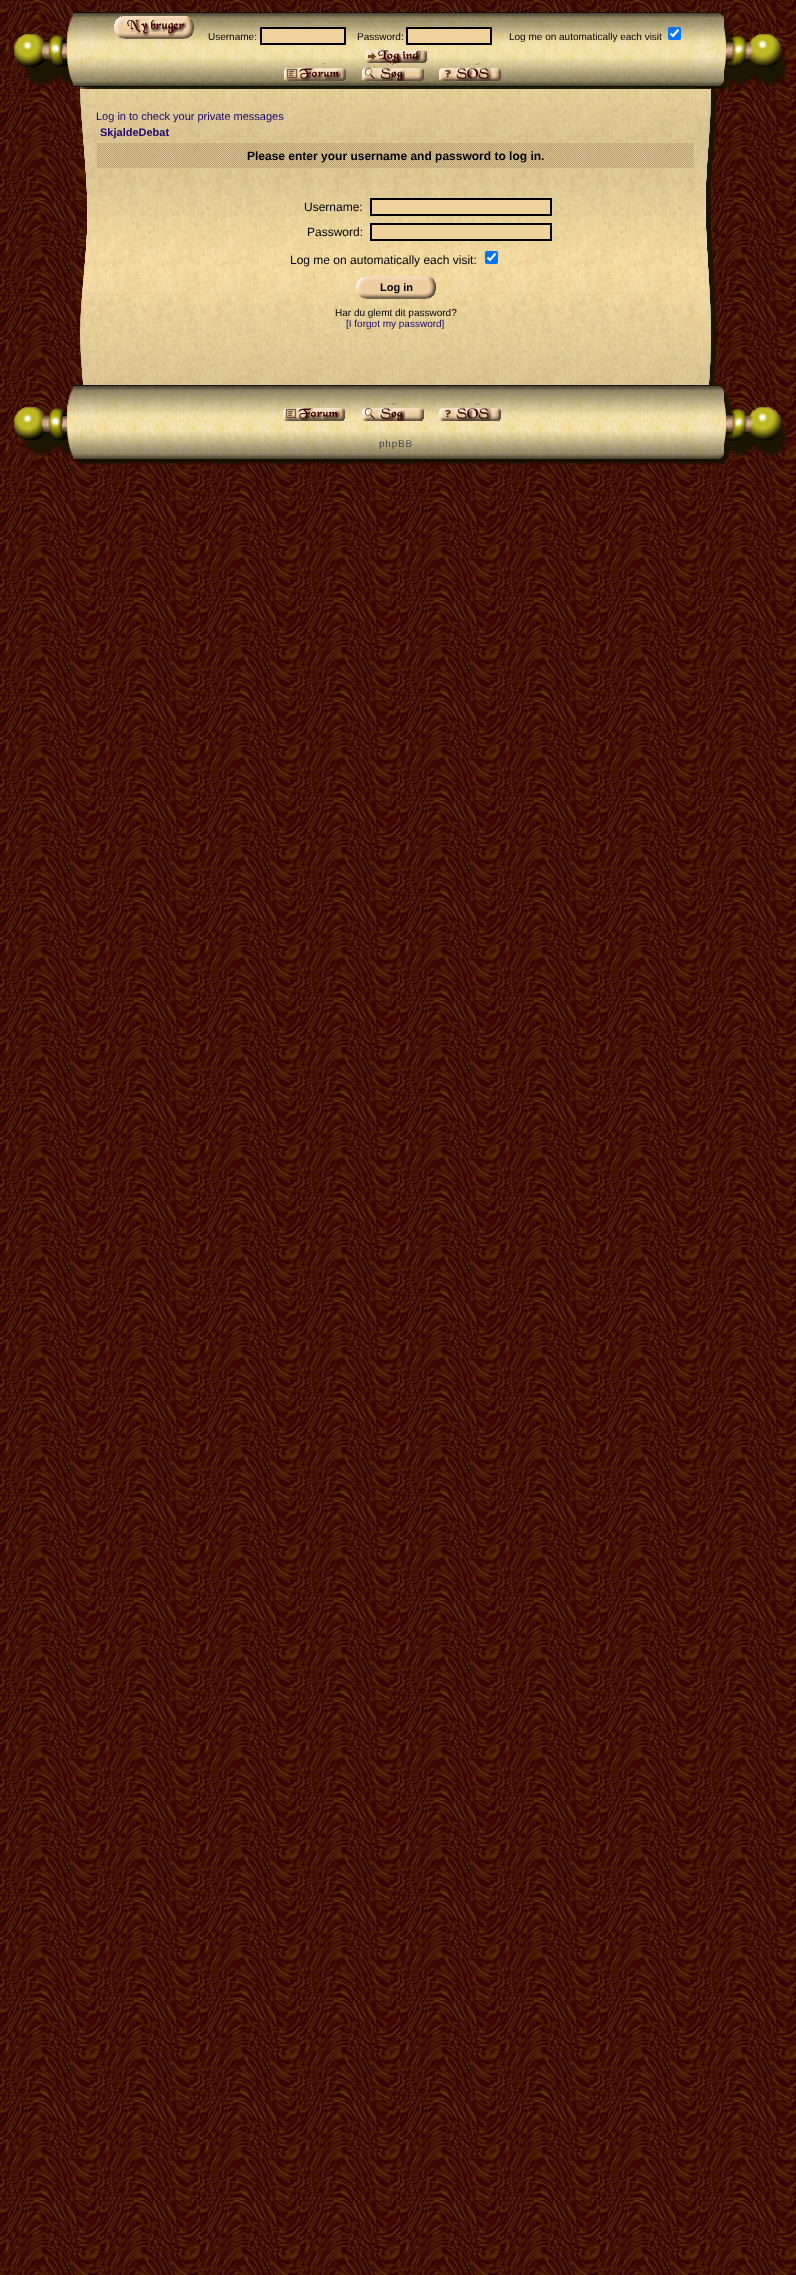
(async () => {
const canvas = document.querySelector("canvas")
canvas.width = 796
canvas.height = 2275
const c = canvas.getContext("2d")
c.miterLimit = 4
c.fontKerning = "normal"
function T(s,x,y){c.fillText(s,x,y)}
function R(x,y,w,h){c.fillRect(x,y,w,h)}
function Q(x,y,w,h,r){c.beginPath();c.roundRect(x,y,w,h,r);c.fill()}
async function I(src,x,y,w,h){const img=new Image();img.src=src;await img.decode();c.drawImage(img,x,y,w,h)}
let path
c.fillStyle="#fff"
R(0,0,796,2275)
await I("1.png",0,0,796,2275)
await I("2.png",14,15,59,72)
await I("3.png",73,12,23,77)
await I("4.png",96,12,599,77)
await I("5.png",114,16,80,23)
c.font="10px Liberation Sans"
c.fillStyle="#000"
T("Username:",208,40)
c.fillStyle="#efd29c"
c.beginPath()
c.rect(261,28,84,16)
c.fill()
c.strokeStyle="#000"
c.lineWidth=2
c.stroke()
c.fillStyle="#000"
T("Password:",357,40)
c.fillStyle="#efd29c"
c.beginPath()
c.rect(407,28,84,16)
c.fill()
c.stroke()
c.fillStyle="#000"
T("Log me on automatically each visit",509,40)
c.fillStyle="#0075ff"
Q(668,27,13,13,2)
path = new Path2D("M670.5 33.5l2.5 2.5l5.5-6.5")
c.strokeStyle="#fff"
c.lineWidth=2.1
c.stroke(path)
await I("6.png",365,48,62,15)
await I("7.png",284,63,62,18)
await I("8.png",362,63,62,18)
await I("9.png",439,63,62,18)
await I("10.png",695,12,29,77)
await I("11.png",724,21,64,68)
await I("12.png",80,89,16,296)
await I("13.png",96,89,599,296)
c.font="11px Liberation Sans"
c.fillStyle="#1c056f"
T("Log in to check your private messages",96,120)
c.font="bold 11px Liberation Sans"
T("SkjaldeDebat",100,136)
await I("14.png",97,143,597,25)
c.font="bold 12px Liberation Sans"
c.fillStyle="#000"
T("Please enter your username and password to log in.",247,160)
c.font="12px Liberation Sans"
T("Username:",304,211)
c.fillStyle="#efd29c"
c.beginPath()
c.rect(371,199,180,16)
c.fill()
c.strokeStyle="#000"
c.lineWidth=2
c.stroke()
c.fillStyle="#000"
T("Password:",307,236)
c.fillStyle="#efd29c"
c.beginPath()
c.rect(371,224,180,16)
c.fill()
c.stroke()
c.fillStyle="#000"
T("Log me on automatically each visit:",290,264)
c.fillStyle="#0075ff"
Q(485,251,13,13,2)
path = new Path2D("M487.5 257.5l2.5 2.5l5.5-6.5")
c.strokeStyle="#fff"
c.lineWidth=2.1
c.stroke(path)
await I("15.png",356,276,80,23)
c.font="bold 11px Liberation Sans"
c.fillStyle="#000"
T("Log in",380,291)
c.font="10px Liberation Sans"
T("Har du glemt dit password?",335,316)
c.fillStyle="#1c056f"
T("[I forgot my password]",346,327)
await I("16.png",695,89,21,296)
await I("17.png",14,388,59,69)
await I("18.png",73,385,23,80)
await I("19.png",96,385,599,80)
await I("20.png",283,403,62,18)
await I("21.png",362,403,62,18)
await I("22.png",439,403,62,18)
c.letterSpacing="-1px"
c.fillStyle="#444"
T("p h p B B",379,447)
await I("23.png",695,385,29,80)
await I("24.png",724,391,64,73)
})()
